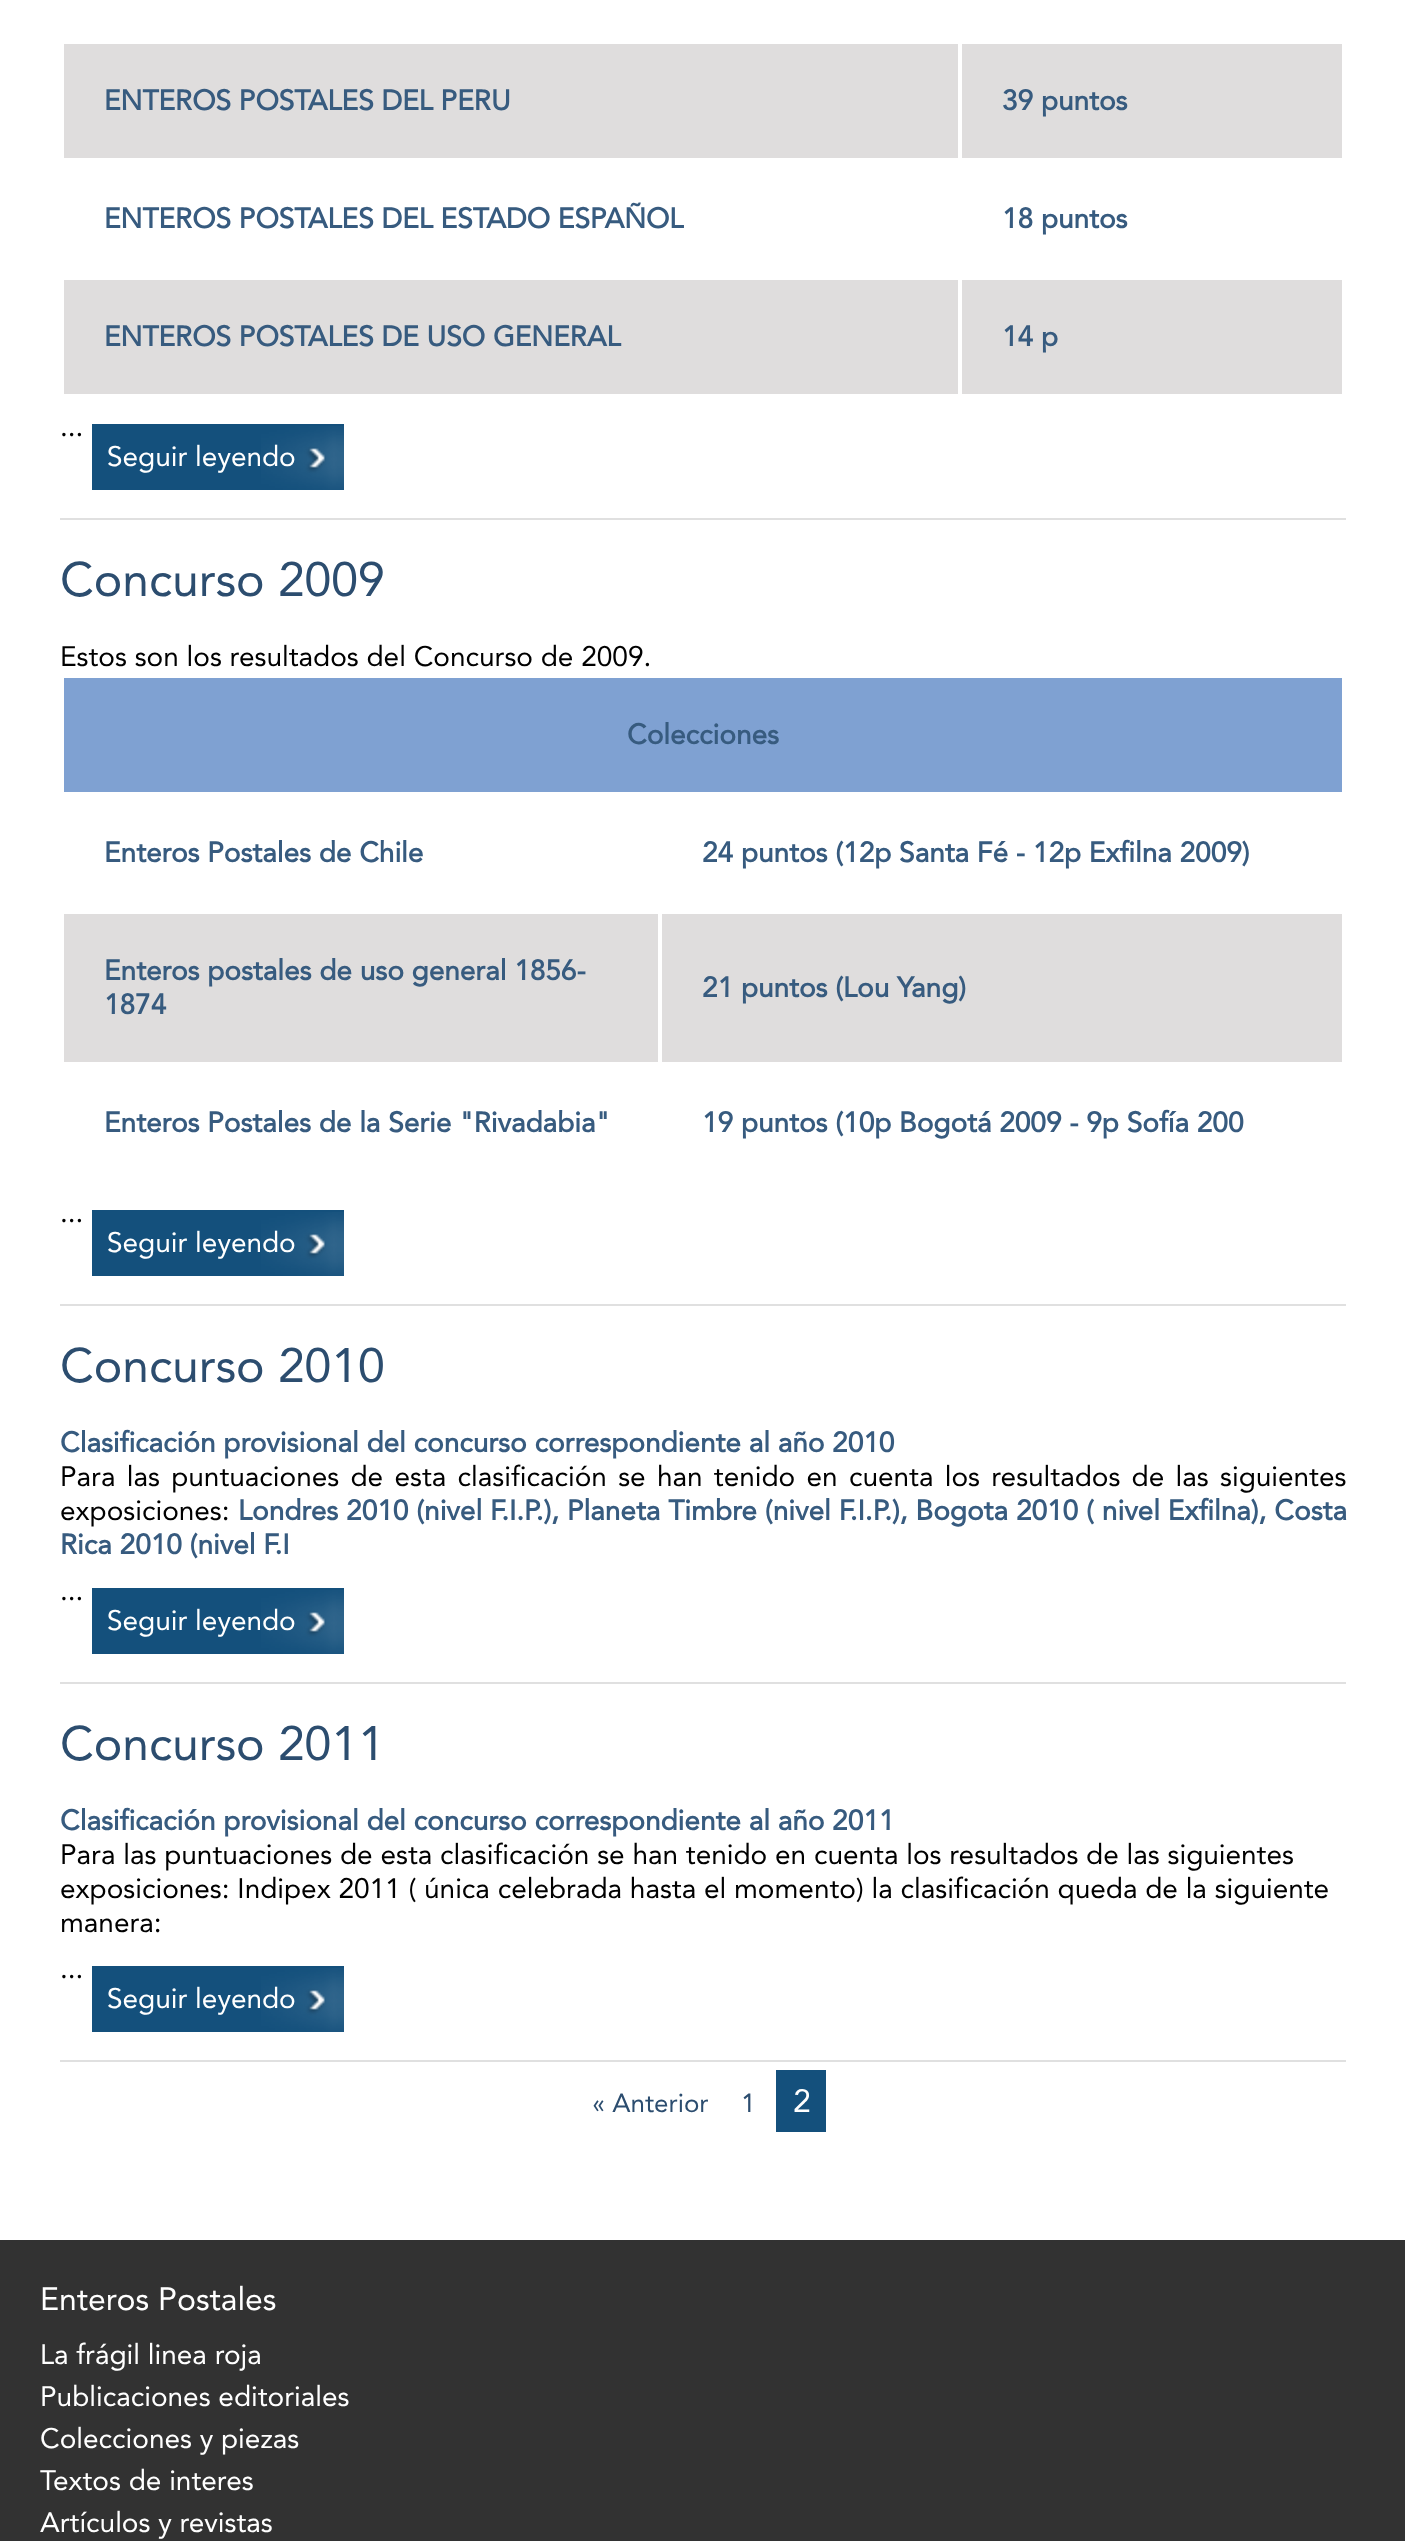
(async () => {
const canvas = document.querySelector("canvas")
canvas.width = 1405
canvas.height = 2541
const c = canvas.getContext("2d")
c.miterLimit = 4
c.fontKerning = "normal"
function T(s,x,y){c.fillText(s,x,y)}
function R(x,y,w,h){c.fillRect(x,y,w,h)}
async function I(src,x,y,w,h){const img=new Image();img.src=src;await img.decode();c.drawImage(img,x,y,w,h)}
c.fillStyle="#fff"
R(0,0,1405,2541)
c.fillStyle="#e0e0e0"
R(60,518,1286,2)
c.fillStyle="#dfdddd"
R(64,44,894,114)
c.font="bold 28px Avenir"
c.fillStyle="#375b7f"
T("ENTEROS POSTALES DEL PERU",104,110)
c.fillStyle="#dfdddd"
R(962,44,380,114)
c.fillStyle="#375b7f"
T("39 puntos",1002,110)
T("ENTEROS POSTALES DEL ESTADO ESPAÑOL",104,228)
T("18 puntos",1002,228)
c.fillStyle="#dfdddd"
R(64,280,894,114)
c.fillStyle="#375b7f"
T("ENTEROS POSTALES DE USO GENERAL",104,346)
c.fillStyle="#dfdddd"
R(962,280,380,114)
c.fillStyle="#375b7f"
T("14 p",1002,346)
c.font="28px Avenir"
c.fillStyle="#000"
T("...",60,436)
c.fillStyle="#14507c"
R(92,424,252,66)
await I("1.png",261,426,83,64)
c.fillStyle="#fff"
T("Seguir leyendo",107,466)
c.fillStyle="#e0e0e0"
R(60,1304,1286,2)
c.font="48px Avenir"
c.fillStyle="#2c4d6f"
T("Concurso 2009",60,596)
c.font="28px Avenir"
c.fillStyle="#000"
T("Estos son los resultados del Concurso de 2009.",60,666)
c.fillStyle="#7fa1d2"
R(64,678,1278,114)
c.font="bold 28px Avenir"
c.fillStyle="#375b7f"
T("Colecciones",627,744)
T("Enteros Postales de Chile",104,862)
T("24 puntos (12p Santa Fé - 12p Exfilna 2009)",702,862)
c.fillStyle="#dfdddd"
R(64,914,594,148)
c.fillStyle="#375b7f"
T("Enteros postales de uso general 1856-",104,980)
T("1874",104,1014)
c.fillStyle="#dfdddd"
R(662,914,680,148)
c.fillStyle="#375b7f"
T("21 puntos (Lou Yang)",702,997)
T("Enteros Postales de la Serie \"Rivadabia\"",104,1132)
T("19 puntos (10p Bogotá 2009 - 9p Sofía 200",702,1132)
c.font="28px Avenir"
c.fillStyle="#000"
T("...",60,1222)
c.fillStyle="#14507c"
R(92,1210,252,66)
await I("1.png",261,1212,83,64)
c.fillStyle="#fff"
T("Seguir leyendo",107,1252)
c.fillStyle="#e0e0e0"
R(60,1682,1286,2)
c.font="48px Avenir"
c.fillStyle="#2c4d6f"
T("Concurso 2010",60,1382)
c.font="bold 28px Avenir"
c.fillStyle="#375b7f"
T("Clasificación provisional del concurso correspondiente al año 2010",60,1452)
c.wordSpacing="3.5px"
c.font="28px Avenir"
c.fillStyle="#000"
T("Para las puntuaciones de esta clasificación se han tenido en cuenta los resultados de las siguientes",60,1486)
c.wordSpacing="0px"
T("exposiciones:",60,1520)
c.wordSpacing="0.2px"
c.font="bold 28px Avenir"
c.fillStyle="#375b7f"
T("Londres 2010 (nivel F.I.P.), Planeta Timbre (nivel F.I.P.), Bogota 2010 ( nivel Exfilna), Costa",238,1520)
c.wordSpacing="0px"
T("Rica 2010 (nivel F.I",60,1554)
c.font="28px Avenir"
c.fillStyle="#000"
T("...",60,1600)
c.fillStyle="#14507c"
R(92,1588,252,66)
await I("1.png",261,1590,83,64)
c.fillStyle="#fff"
T("Seguir leyendo",107,1630)
c.fillStyle="#e0e0e0"
R(60,2060,1286,2)
c.font="48px Avenir"
c.fillStyle="#2c4d6f"
T("Concurso 2011",60,1760)
c.font="bold 28px Avenir"
c.fillStyle="#375b7f"
T("Clasificación provisional del concurso correspondiente al año 2011",60,1830)
c.font="28px Avenir"
c.fillStyle="#000"
T("Para las puntuaciones de esta clasificación se han tenido en cuenta los resultados de las siguientes",60,1864)
T("exposiciones: Indipex 2011 ( única celebrada hasta el momento) la clasificación queda de la siguiente",60,1898)
T("manera:",60,1932)
T("...",60,1978)
c.fillStyle="#14507c"
R(92,1966,252,66)
await I("1.png",261,1968,83,64)
c.fillStyle="#fff"
T("Seguir leyendo",107,2008)
c.font="26px Avenir"
c.fillStyle="#2c4d6f"
T("« Anterior",592,2112)
T("1",741,2112)
c.fillStyle="#14507c"
R(776,2070,50,62)
c.font="32px Avenir"
c.fillStyle="#fff"
T("2",793,2112)
c.fillStyle="#323232"
R(0,2240,1405,301)
c.fillStyle="#fff"
T("Enteros Postales",40,2310)
c.font="28px Avenir"
T("La frágil linea roja",40,2364)
T("Publicaciones editoriales",40,2406)
T("Colecciones y piezas",40,2448)
T("Textos de interes",40,2490)
T("Artículos y revistas",40,2532)
})()
